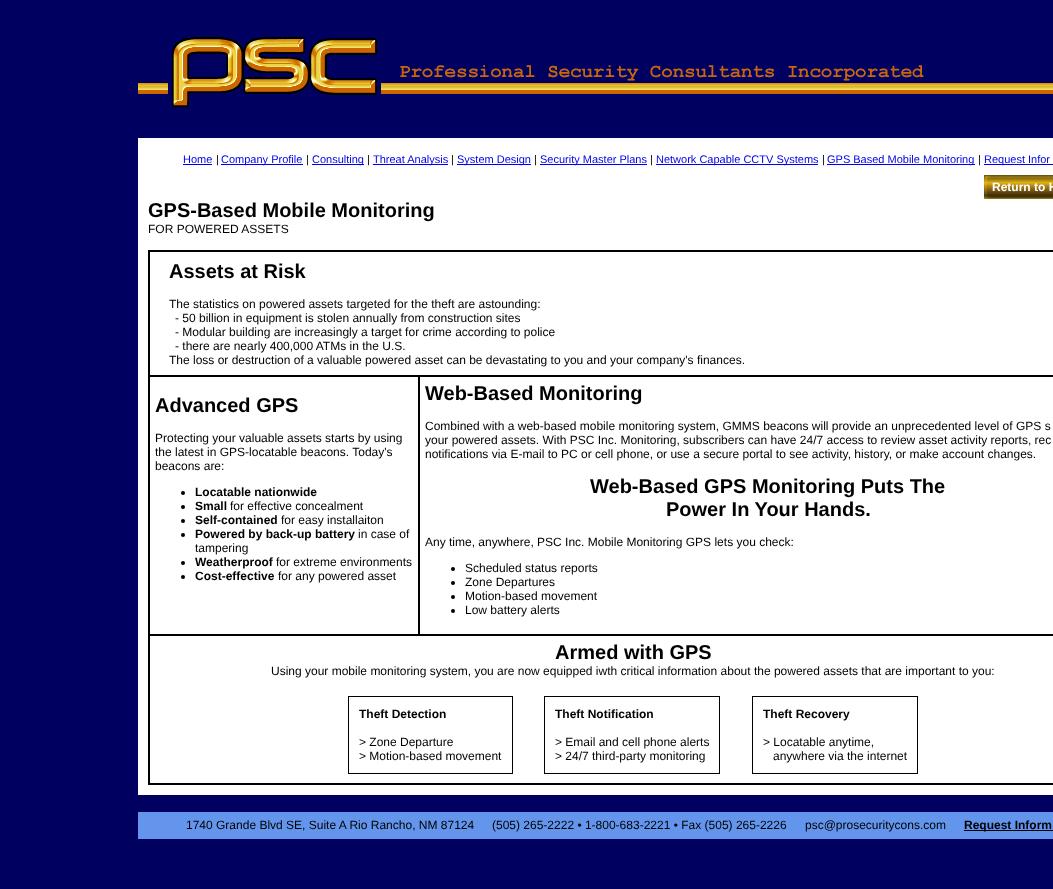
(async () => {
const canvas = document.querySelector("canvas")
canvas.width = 1053
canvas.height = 889
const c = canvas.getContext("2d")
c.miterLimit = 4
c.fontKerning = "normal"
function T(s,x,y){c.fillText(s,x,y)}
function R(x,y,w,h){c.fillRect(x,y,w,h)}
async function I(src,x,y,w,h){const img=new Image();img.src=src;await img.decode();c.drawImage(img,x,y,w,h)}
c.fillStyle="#000060"
R(0,0,1053,889)
await I("1.png",924,83,129,11)
await I("2.png",138,37,786,70)
c.fillStyle="#fff"
R(138,138,915,657)
c.font="11px Liberation Sans"
c.fillStyle="#00e"
T("Home",183,163)
R(183,164,29,1)
c.fillStyle="#000"
T("|",216,163)
c.fillStyle="#00e"
R(221,164,82,1)
T("Company Profile",221,163)
c.fillStyle="#000"
T("|",306,163)
c.fillStyle="#00e"
R(312,164,52,1)
T("Consulting",312,163)
c.fillStyle="#000"
T("|",367,163)
c.fillStyle="#00e"
R(373,164,75,1)
T("Threat Analysis",373,163)
c.fillStyle="#000"
T("|",451,163)
c.fillStyle="#00e"
R(457,164,74,1)
T("System Design",457,163)
c.fillStyle="#000"
T("|",534,163)
c.fillStyle="#00e"
R(540,164,107,1)
T("Security Master Plans",540,163)
c.fillStyle="#000"
T("|",650,163)
c.fillStyle="#00e"
R(656,164,162,1)
T("Network Capable CCTV Systems",656,163)
c.fillStyle="#000"
T("|",822,163)
c.fillStyle="#00e"
R(827,164,148,1)
T("GPS Based Mobile Monitoring",827,163)
c.fillStyle="#000"
T("|",978,163)
c.fillStyle="#00e"
R(984,164,69,1)
T("Request Infor",984,163)
await I("3.png",984,175,8,24)
await I("4.png",992,175,61,24)
c.font="bold 12px Liberation Sans"
c.fillStyle="#fff"
T("Return to H",992,191)
c.font="bold 20px Liberation Sans"
c.fillStyle="#000"
T("GPS-Based Mobile Monitoring",148,217)
c.font="12px Liberation Sans"
T("FOR POWERED ASSETS",148,233)
c.strokeStyle="#000"
c.strokeRect(148.5,250.5,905,534)
c.strokeRect(149.5,251.5,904,124)
c.font="bold 20px Liberation Sans"
T("Assets at Risk",169,278)
c.font="12px Liberation Sans"
T("The statistics on powered assets targeted for the theft are astounding:",169,308)
T("- 50 billion in equipment is stolen annually from construction sites",175,322)
T("- Modular building are increasingly a target for crime according to police",175,336)
T("- there are nearly 400,000 ATMs in the U.S.",175,350)
T("The loss or destruction of a valuable powered asset can be devastating to you and your company's finances.",169,364)
c.strokeRect(149.5,376.5,269,258)
c.font="bold 20px Liberation Sans"
T("Advanced GPS",155,412)
c.font="12px Liberation Sans"
T("Protecting your valuable assets starts by using",155,442)
T("the latest in GPS-locatable beacons. Today's",155,456)
T("beacons are:",155,470)
c.beginPath()
c.arc(183,493,2,0,7)
c.fill()
c.font="bold 12px Liberation Sans"
T("Locatable nationwide",195,496)
c.beginPath()
c.arc(183,507,2,0,7)
c.fill()
T("Small",195,510)
c.font="12px Liberation Sans"
T("for effective concealment",230,510)
c.beginPath()
c.arc(183,521,2,0,7)
c.fill()
c.font="bold 12px Liberation Sans"
T("Self-contained",195,524)
c.font="12px Liberation Sans"
T("for easy installaiton",281,524)
c.beginPath()
c.arc(183,535,2,0,7)
c.fill()
c.font="bold 12px Liberation Sans"
T("Powered by back-up battery",195,538)
c.font="12px Liberation Sans"
T("in case of",358,538)
T("tampering",195,552)
c.beginPath()
c.arc(183,563,2,0,7)
c.fill()
c.font="bold 12px Liberation Sans"
T("Weatherproof",195,566)
c.font="12px Liberation Sans"
T("for extreme environments",276,566)
c.beginPath()
c.arc(183,577,2,0,7)
c.fill()
c.font="bold 12px Liberation Sans"
T("Cost-effective",195,580)
c.font="12px Liberation Sans"
T("for any powered asset",278,580)
c.strokeRect(419.5,376.5,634,258)
c.font="bold 20px Liberation Sans"
T("Web-Based Monitoring",425,400)
c.font="12px Liberation Sans"
T("Combined with a web-based mobile monitoring system, GMMS beacons will provide an unprecedented level of GPS s",425,430)
T("your powered assets. With PSC Inc. Monitoring, subscribers can have 24/7 access to review asset activity reports, rec",425,444)
T("notifications via E-mail to PC or cell phone, or use a secure portal to see activity, history, or make account changes.",425,458)
c.font="bold 20px Liberation Sans"
T("Web-Based GPS Monitoring Puts The",590,493)
T("Power In Your Hands.",666,516)
c.font="12px Liberation Sans"
T("Any time, anywhere, PSC Inc. Mobile Monitoring GPS lets you check:",425,546)
c.beginPath()
c.arc(453,569,2,0,7)
c.fill()
T("Scheduled status reports",465,572)
c.beginPath()
c.arc(453,583,2,0,7)
c.fill()
T("Zone Departures",465,586)
c.beginPath()
c.arc(453,597,2,0,7)
c.fill()
T("Motion-based movement",465,600)
c.beginPath()
c.arc(453,611,2,0,7)
c.fill()
T("Low battery alerts",465,614)
c.strokeRect(149.5,635.5,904,148)
c.font="bold 20px Liberation Sans"
T("Armed with GPS",555,659)
c.font="12px Liberation Sans"
T("Using your mobile monitoring system, you are now equipped iwth critical information about the powered assets that are important to you:",271,675)
c.strokeRect(348.5,696.5,164,77)
c.font="bold 12px Liberation Sans"
T("Theft Detection",359,718)
c.font="12px Liberation Sans"
T("> Zone Departure",359,746)
T("> Motion-based movement",359,760)
c.strokeRect(544.5,696.5,175,77)
c.font="bold 12px Liberation Sans"
T("Theft Notification",555,718)
c.font="12px Liberation Sans"
T("> Email and cell phone alerts",555,746)
T("> 24/7 third-party monitoring",555,760)
c.strokeRect(752.5,696.5,165,77)
c.font="bold 12px Liberation Sans"
T("Theft Recovery",763,718)
c.font="12px Liberation Sans"
T("> Locatable anytime,",763,746)
T("anywhere via the internet",773,760)
c.fillStyle="#6495ed"
R(138,812,915,27)
c.fillStyle="#000"
T("1740 Grande Blvd SE, Suite A Rio Rancho, NM 87124",186,829)
T("(505) 265-2222 • 1-800-683-2221 • Fax (505) 265-2226",492,829)
T("psc@prosecuritycons.com",805,829)
R(964,830,89,1)
c.font="bold 12px Liberation Sans"
T("Request Inform",964,829)
})()
